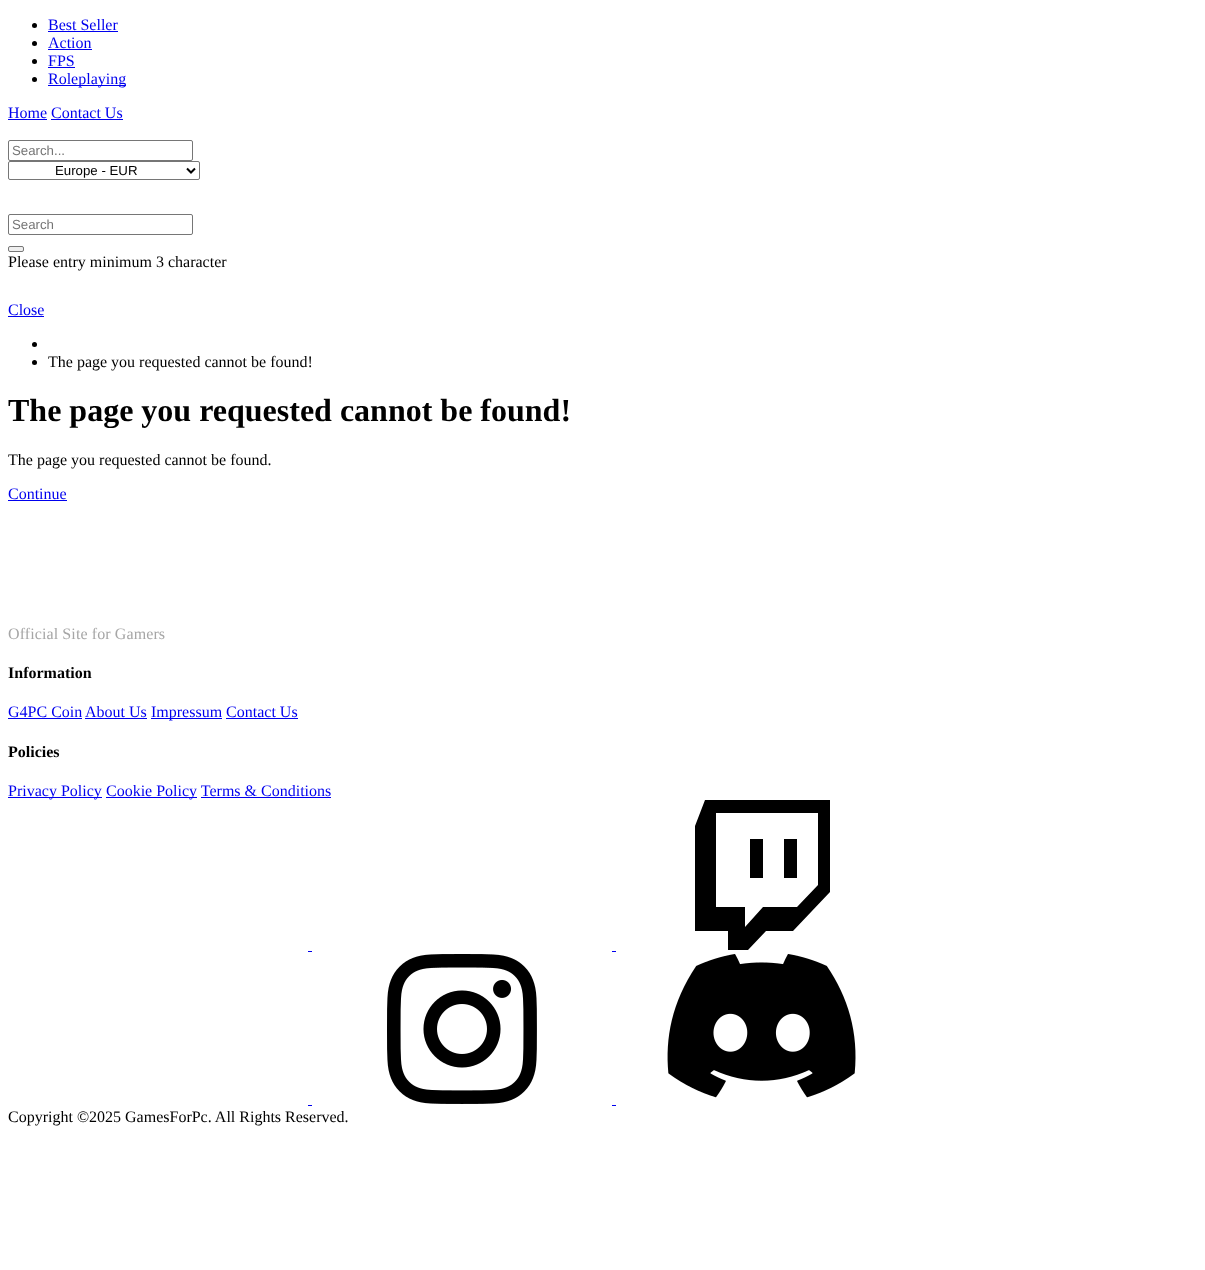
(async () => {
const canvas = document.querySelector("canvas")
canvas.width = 1205
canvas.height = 1270
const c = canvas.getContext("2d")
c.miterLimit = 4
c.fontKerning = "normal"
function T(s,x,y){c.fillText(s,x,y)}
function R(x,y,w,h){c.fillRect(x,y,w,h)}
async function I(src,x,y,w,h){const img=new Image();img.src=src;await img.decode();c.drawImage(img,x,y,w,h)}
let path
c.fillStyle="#fff"
R(0,0,1205,1270)
c.fillStyle="#000"
c.beginPath()
c.arc(34.5,25.5,2.5,0,7)
c.fill()
c.font="16px Liberation Serif"
c.fillStyle="#00e"
T("Best Seller",48,30)
R(48,31,70,1)
c.fillStyle="#000"
c.beginPath()
c.arc(34.5,43.5,2.5,0,7)
c.fill()
c.fillStyle="#00e"
T("Action",48,48)
R(48,49,44,1)
c.fillStyle="#000"
c.beginPath()
c.arc(34.5,61.5,2.5,0,7)
c.fill()
c.fillStyle="#00e"
T("FPS",48,66)
R(48,67,27,1)
c.fillStyle="#000"
c.beginPath()
c.arc(34.5,79.5,2.5,0,7)
c.fill()
c.fillStyle="#00e"
R(48,85,78,1)
T("Roleplaying",48,84)
T("Home Contact Us",8,118)
R(8,119,39,1)
R(51,119,72,1)
c.beginPath()
c.roundRect(8.5,140.5,184,20,1.5)
c.strokeStyle="#767676"
c.stroke()
c.font="13.25px Liberation Sans"
c.fillStyle="#757575"
T("Search...",12,155)
c.beginPath()
c.roundRect(8.5,161.5,191,18,1.5)
c.stroke()
path = new Path2D("M187 168.5l4 4l4-4")
c.strokeStyle="#000"
c.lineWidth=2
c.stroke(path)
c.fillStyle="#000"
T("Europe - EUR",55,175)
c.beginPath()
c.roundRect(8.5,214.5,184,20,1.5)
c.strokeStyle="#767676"
c.lineWidth=1
c.stroke()
c.fillStyle="#757575"
T("Search",12,229)
c.fillStyle="#efefef"
c.beginPath()
c.roundRect(8.5,246.5,15,5,1.5)
c.fill()
c.stroke()
c.font="16px Liberation Serif"
c.fillStyle="#000"
T("Please entry minimum 3 character",8,267)
c.fillStyle="#00e"
T("Close",8,315)
R(8,316,36,1)
c.fillStyle="#000"
c.beginPath()
c.arc(34.5,344.5,2.5,0,7)
c.fill()
c.beginPath()
c.arc(34.5,362.5,2.5,0,7)
c.fill()
T("The page you requested cannot be found!",48,367)
c.font="bold 32px Liberation Serif"
T("The page you requested cannot be found!",8,421)
c.font="16px Liberation Serif"
T("The page you requested cannot be found.",8,465)
c.fillStyle="#00e"
T("Continue",8,499)
R(8,500,59,1)
c.letterSpacing="0.1px"
c.fillStyle="#a6a6a6"
T("Official Site for Gamers",8,639)
c.letterSpacing="0px"
c.font="bold 16px Liberation Serif"
c.fillStyle="#000"
T("Information",8,678)
c.font="16px Liberation Serif"
c.fillStyle="#00e"
T("G4PC Coin",8,717)
R(8,718,74,1)
T("About Us",85,717)
R(85,718,62,1)
R(151,718,71,1)
T("Impressum Contact Us",151,717)
R(226,718,72,1)
c.font="bold 16px Liberation Serif"
c.fillStyle="#000"
T("Policies",8,757)
c.fillStyle="#00e"
R(8,797,94,1)
c.font="16px Liberation Serif"
T("Privacy Policy",8,796)
R(106,797,91,1)
T("Cookie Policy Terms & Conditions",106,796)
R(201,797,130,1)
c.fillStyle="#000"
path = new Path2D("M705 800l-10 26v105h33v19h20l18-19h27l37-39v-92zm113 85l-21 22h-34l-18 20v-20h-29v-94h102z")
c.fill(path)
path = new Path2D("M797 839h-13v39h13zm-34 0h-13v39h13z")
c.fill(path)
c.fillStyle="#00e"
R(308,951,4,1)
R(612,951,4,1)
await I("1.png",387,954,150,150)
await I("2.png",667,954,189,144)
R(308,1105,4,1)
R(612,1105,4,1)
c.fillStyle="#000"
T("Copyright ©2025 GamesForPc. All Rights Reserved.",8,1122)
})()
